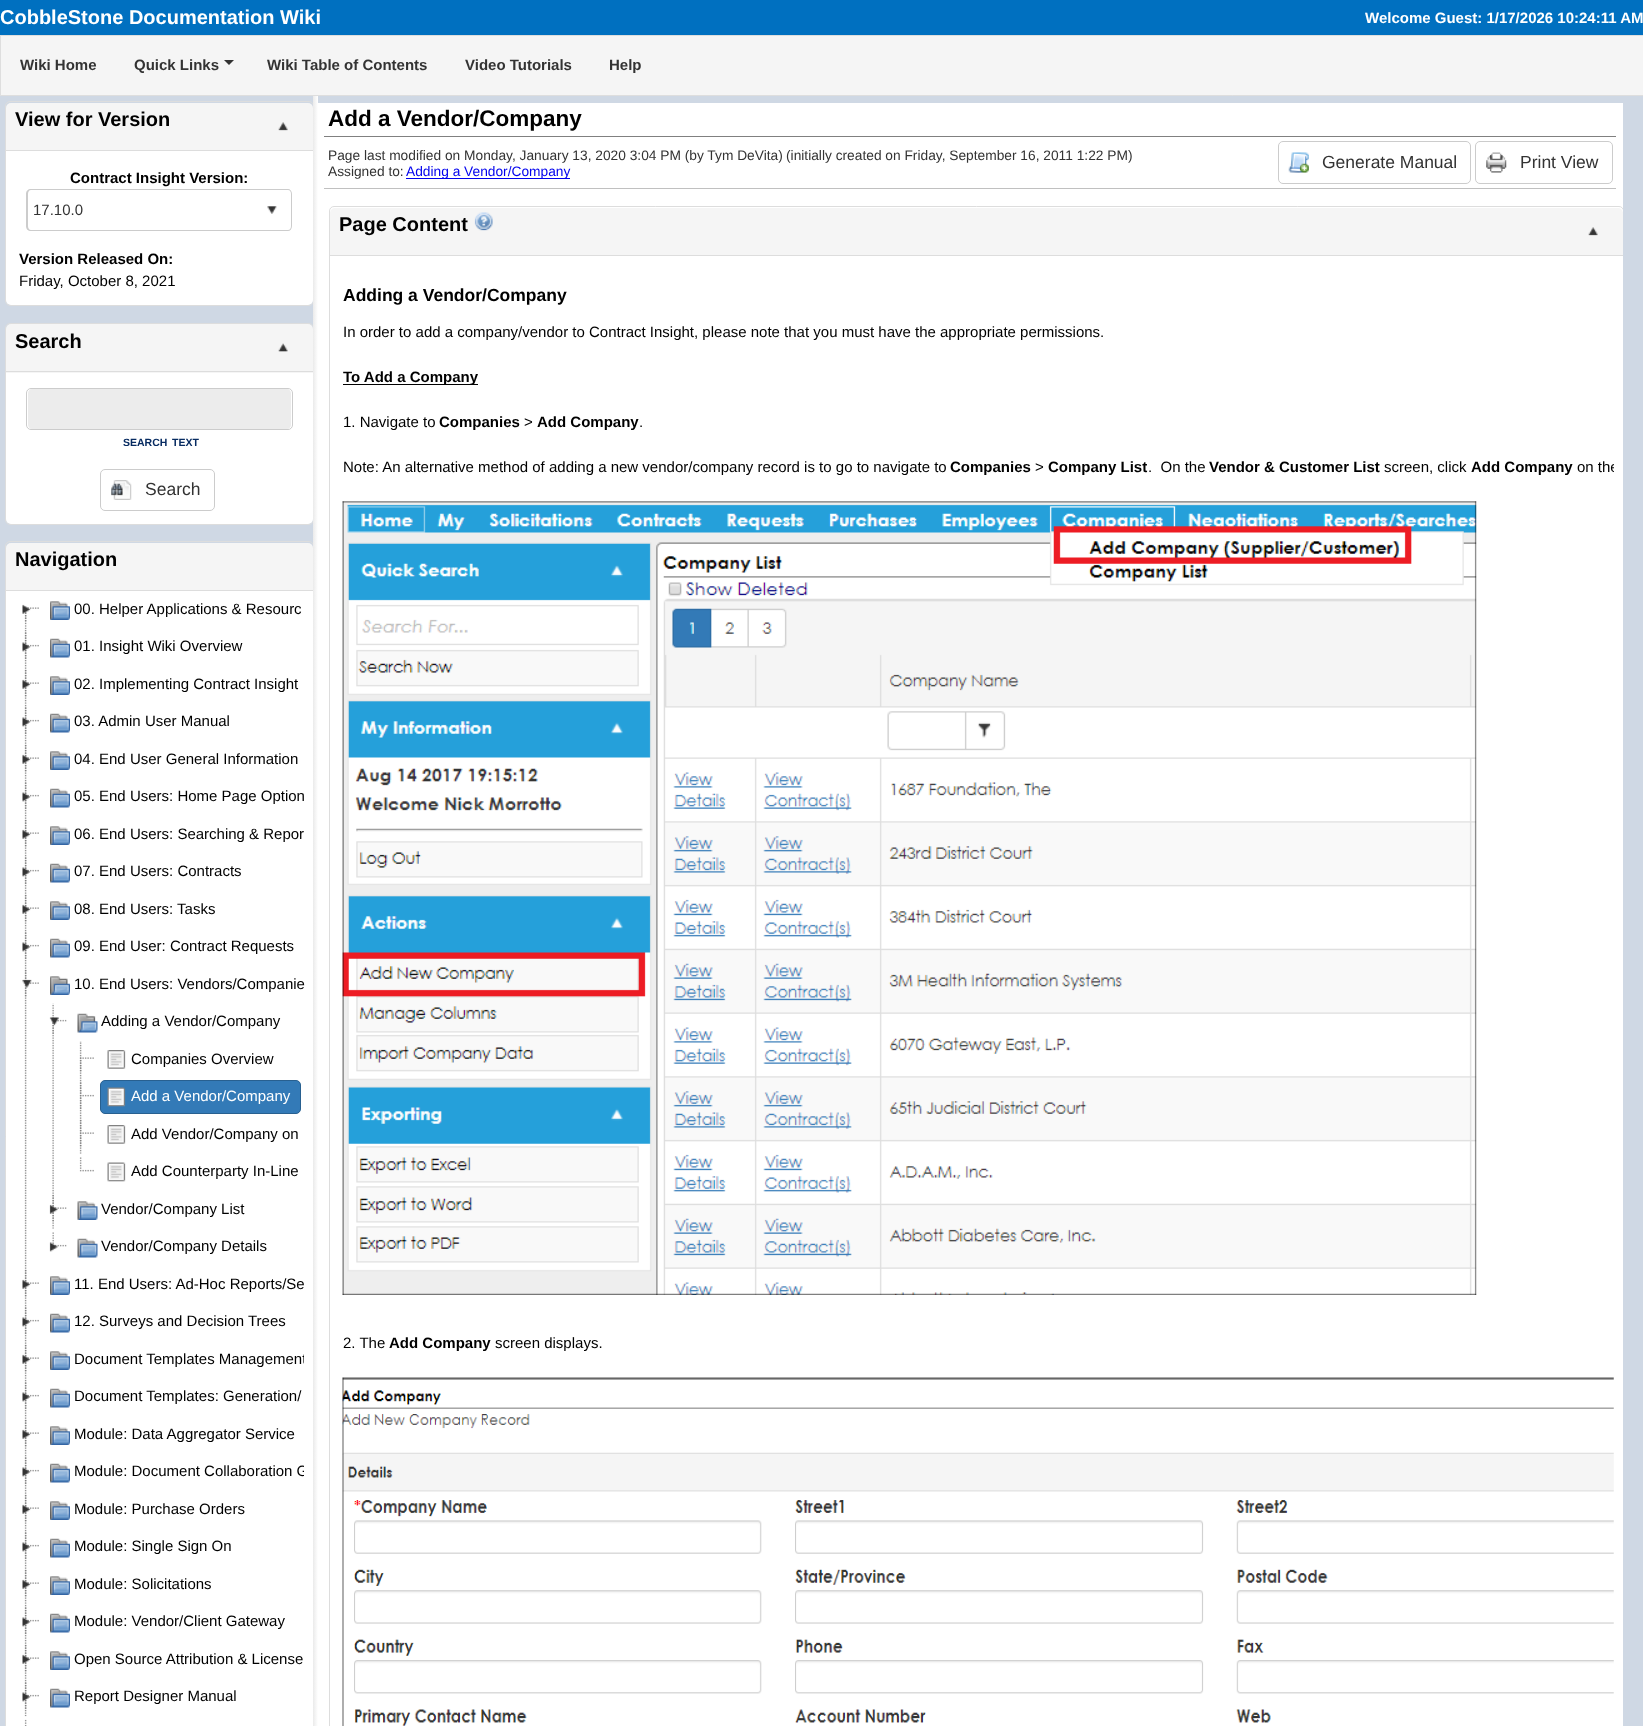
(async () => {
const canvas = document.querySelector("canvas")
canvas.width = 1643
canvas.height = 1726
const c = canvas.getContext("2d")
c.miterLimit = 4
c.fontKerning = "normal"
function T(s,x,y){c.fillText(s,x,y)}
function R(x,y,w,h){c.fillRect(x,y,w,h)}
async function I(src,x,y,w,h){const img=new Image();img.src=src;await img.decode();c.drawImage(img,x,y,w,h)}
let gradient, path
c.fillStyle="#cfd8e4"
R(0,0,1643,1726)
c.fillStyle="#0070c0"
R(0,0,1643,35)
c.font="bold 20px Liberation Sans"
c.fillStyle="#fff"
T("CobbleStone Documentation Wiki",0,24)
c.font="bold 15px Liberation Sans"
T("Welcome Guest: 1/17/2026 10:24:11 AM",1365,23)
c.fillStyle="#f5f5f5"
c.beginPath()
c.rect(.5,35.5,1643,60)
c.fill()
c.strokeStyle="#dedede"
c.stroke()
c.fillStyle="#333"
T("Wiki Home",20,70)
T("Quick Links",134,70)
path = new Path2D("M224 60h10l-5 5z")
c.fill(path)
T("Wiki Table of Contents",267,70)
T("Video Tutorials",465,70)
T("Help",609,70)
gradient = c.createLinearGradient(318,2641,312,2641)
gradient.addColorStop(0,"#fff")
gradient.addColorStop(1,"#e6e6e6")
c.fillStyle = gradient
R(313,96,5,1630)
c.save()
c.beginPath()
c.rect(0,96,313,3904)
c.clip()
c.beginPath()
c.roundRect(5.5,101.5,308,204,4.5)
c.strokeStyle="#ddd"
c.stroke()
c.restore()
c.fillStyle="#f5f5f5"
c.beginPath()
c.roundRect(6,103,9,48,[5,0,0,0])
c.fill()
c.fillStyle="#ddd"
R(6,150,298,1)
c.fillStyle="#f5f5f5"
c.beginPath()
c.roundRect(304,103,9,48,[0,5,0,0])
c.fill()
c.fillStyle="#ddd"
R(304,150,9,1)
c.fillStyle="#f5f5f5"
R(15,103,289,47)
c.font="bold 20px Liberation Sans"
c.fillStyle="#000"
T("View for Version",15,126)
await I("1.png",278,122,10,9)
c.fillStyle="#fff"
R(6,151,307,145)
c.font="bold 15px Liberation Sans"
c.fillStyle="#000"
T("Contract Insight Version:",70,183)
c.fillStyle="#ccc"
path = new Path2D("M31 189h220v42h-220c-3 0-5-2-5-5v-32c0-3 2-5 5-5zm0 1h220v40h-220c-2 0-3-2-3-4v-32c0-2 1-4 3-4z")
c.fill(path,"evenodd")
c.font="15px Liberation Sans"
c.fillStyle="#333"
T("17.10.0",33,215)
c.fillStyle="#ccc"
path = new Path2D("M251 189h37c2 0 4 2 4 5v32c0 3-2 5-4 5h-37zm0 1h37c2 0 3 2 3 4v32c0 2-1 4-3 4h-37z")
c.fill(path,"evenodd")
await I("2.png",267,206,10,8)
c.font="bold 15px Liberation Sans"
c.fillStyle="#000"
T("Version Released On:",19,264)
c.font="15px Liberation Sans"
T("Friday, October 8, 2021",19,286)
c.fillStyle="#fff"
c.beginPath()
c.roundRect(6,296,9,9,[0,0,0,5])
c.fill()
R(15,296,289,9)
c.beginPath()
c.roundRect(304,296,9,9,[0,0,5,0])
c.fill()
c.save()
c.beginPath()
c.rect(0,96,313,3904)
c.clip()
c.beginPath()
c.roundRect(5.5,323.5,308,201,4.5)
c.strokeStyle="#ddd"
c.stroke()
c.restore()
c.fillStyle="#f5f5f5"
c.beginPath()
c.roundRect(6,324,9,49,[5,0,0,0])
c.fill()
c.fillStyle="#ddd"
R(6,371,9,1)
c.fillStyle="#f5f5f5"
R(15,324,289,49)
c.fillStyle="#ddd"
R(15,371,289,1)
c.font="bold 20px Liberation Sans"
c.fillStyle="#000"
T("Search",15,348)
await I("3.png",278,343,10,9)
c.fillStyle="#f5f5f5"
c.beginPath()
c.roundRect(304,324,9,49,[0,5,0,0])
c.fill()
c.fillStyle="#ddd"
R(304,371,9,1)
c.fillStyle="#fff"
R(6,373,307,142)
c.fillStyle="#ececec"
path = new Path2D("M32 389c-2 0-4 2-4 4v32c0 2 2 4 4 4h255c2 0 4-2 4-4v-32c0-2-2-4-4-4z")
c.fill(path)
c.beginPath()
c.roundRect(26.5,388.5,266,41,4.5)
c.strokeStyle="#ccc"
c.stroke()
c.font="bold 10.5px Liberation Sans"
c.fillStyle="#072b61"
T("SEARCH",123,446)
T("TEXT",172,446)
c.beginPath()
c.roundRect(100.5,469.5,114,41,4.5)
c.stroke()
await I("4.png",111,480,21,20)
c.font="17.5px Liberation Sans"
c.fillStyle="#333"
T("Search",145,495)
c.fillStyle="#fff"
c.beginPath()
c.roundRect(6,515,9,9,[0,0,0,5])
c.fill()
R(15,515,289,9)
c.beginPath()
c.roundRect(304,515,9,9,[0,0,5,0])
c.fill()
c.save()
c.beginPath()
c.rect(0,96,313,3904)
c.clip()
c.beginPath()
c.roundRect(5.5,541.5,308,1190,4.5)
c.strokeStyle="#ddd"
c.stroke()
c.restore()
c.fillStyle="#f5f5f5"
c.beginPath()
c.roundRect(6,543,9,48,[5,0,0,0])
c.fill()
c.fillStyle="#ddd"
R(6,590,298,1)
c.fillStyle="#f5f5f5"
c.beginPath()
c.roundRect(304,543,9,48,[0,5,0,0])
c.fill()
c.fillStyle="#ddd"
R(304,590,9,1)
c.fillStyle="#f5f5f5"
R(15,543,289,47)
c.font="bold 20px Liberation Sans"
c.fillStyle="#000"
T("Navigation",15,566)
c.fillStyle="#fff"
R(6,591,307,1135)
await I("5.png",24,610,3,19)
await I("6.png",24,607,15,15)
await I("7.png",22,604,9,10)
await I("8.png",50,601,20,19)
c.font="15px Liberation Sans"
c.fillStyle="#000"
T("00. Helper Applications & Resourc",74,614)
await I("9.png",24,628,3,39)
await I("10.png",24,632,15,27)
await I("11.png",22,642,9,10)
await I("12.png",50,638,20,20)
T("01. Insight Wiki Overview",74,651)
await I("13.png",24,666,3,38)
await I("14.png",24,669,15,28)
await I("15.png",22,679,9,10)
await I("8.png",50,676,20,19)
T("02. Implementing Contract Insight",74,689)
await I("16.png",24,703,3,39)
await I("10.png",24,707,15,27)
await I("11.png",22,717,9,10)
await I("12.png",50,713,20,20)
T("03. Admin User Manual",74,726)
await I("13.png",24,741,3,38)
await I("14.png",24,744,15,28)
await I("15.png",22,754,9,10)
await I("8.png",50,751,20,19)
T("04. End User General Information",74,764)
await I("16.png",24,778,3,39)
await I("17.png",24,782,15,27)
await I("18.png",22,792,9,10)
await I("12.png",50,788,20,20)
T("05. End Users: Home Page Option",74,801)
await I("13.png",24,816,3,38)
await I("14.png",24,819,15,28)
await I("15.png",22,829,9,10)
await I("8.png",50,826,20,19)
T("06. End Users: Searching & Repor",74,839)
await I("16.png",24,853,3,39)
await I("10.png",24,857,15,27)
await I("11.png",22,867,9,10)
await I("12.png",50,863,20,20)
T("07. End Users: Contracts",74,876)
await I("13.png",24,891,3,38)
await I("14.png",24,894,15,28)
await I("15.png",22,904,9,10)
await I("8.png",50,901,20,19)
T("08. End Users: Tasks",74,914)
await I("16.png",24,928,3,39)
await I("10.png",24,932,15,27)
await I("11.png",22,942,9,10)
await I("12.png",50,938,20,20)
T("09. End User: Contract Requests",74,951)
await I("19.png",24,966,3,301)
await I("14.png",24,969,15,28)
await I("20.png",22,979,10,9)
await I("21.png",50,976,20,19)
T("10. End Users: Vendors/Companie",74,989)
await I("22.png",52,1003,2,189)
await I("23.png",52,1019,15,15)
await I("24.png",49,1017,10,9)
await I("25.png",77,1013,21,20)
T("Adding a Vendor/Company",101,1026)
await I("26.png",79,1041,3,38)
await I("27.png",79,1057,15,15)
await I("28.png",107,1050,19,19)
T("Companies Overview",131,1064)
await I("16.png",79,1078,3,39)
await I("10.png",79,1082,15,27)
c.fillStyle="#337ab7"
c.beginPath()
c.roundRect(100.5,1080.5,200,33,4.5)
c.fill()
c.strokeStyle="#286090"
c.stroke()
await I("29.png",107,1087,19,20)
c.fillStyle="#fff"
T("Add a Vendor/Company",131,1101)
await I("13.png",79,1116,3,38)
await I("14.png",79,1119,15,28)
await I("28.png",107,1125,19,19)
c.fillStyle="#000"
T("Add Vendor/Company on",131,1139)
await I("30.png",79,1157,15,15)
await I("31.png",107,1162,19,20)
T("Add Counterparty In-Line",131,1176)
await I("32.png",52,1191,2,38)
await I("33.png",52,1194,15,28)
await I("34.png",49,1204,9,10)
await I("35.png",77,1201,21,19)
T("Vendor/Company List",101,1214)
await I("36.png",52,1232,15,15)
await I("37.png",49,1242,9,10)
await I("38.png",77,1238,21,20)
T("Vendor/Company Details",101,1251)
await I("13.png",24,1266,3,38)
await I("14.png",24,1269,15,28)
await I("15.png",22,1279,9,10)
await I("8.png",50,1276,20,19)
T("11. End Users: Ad-Hoc Reports/Se",74,1289)
await I("16.png",24,1303,3,39)
await I("10.png",24,1307,15,27)
await I("11.png",22,1317,9,10)
await I("12.png",50,1313,20,20)
T("12. Surveys and Decision Trees",74,1326)
await I("13.png",24,1341,3,38)
await I("14.png",24,1344,15,28)
await I("15.png",22,1354,9,10)
await I("8.png",50,1351,20,19)
c.save()
c.beginPath()
c.rect(15,591,289,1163)
c.clip()
T("Document Templates Management",74,1364)
c.restore()
await I("16.png",24,1378,3,39)
await I("10.png",24,1382,15,27)
await I("11.png",22,1392,9,10)
await I("12.png",50,1388,20,20)
T("Document Templates: Generation/",74,1401)
await I("13.png",24,1416,3,38)
await I("14.png",24,1419,15,28)
await I("15.png",22,1429,9,10)
await I("8.png",50,1426,20,19)
T("Module: Data Aggregator Service",74,1439)
await I("16.png",24,1453,3,39)
await I("10.png",24,1457,15,27)
await I("11.png",22,1467,9,10)
await I("12.png",50,1463,20,20)
c.save()
c.beginPath()
c.rect(15,591,289,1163)
c.clip()
T("Module: Document Collaboration G",74,1476)
c.restore()
await I("13.png",24,1491,3,38)
await I("14.png",24,1494,15,28)
await I("15.png",22,1504,9,10)
await I("8.png",50,1501,20,19)
T("Module: Purchase Orders",74,1514)
await I("16.png",24,1528,3,39)
await I("10.png",24,1532,15,27)
await I("11.png",22,1542,9,10)
await I("12.png",50,1538,20,20)
T("Module: Single Sign On",74,1551)
await I("13.png",24,1566,3,38)
await I("14.png",24,1569,15,28)
await I("15.png",22,1579,9,10)
await I("8.png",50,1576,20,19)
T("Module: Solicitations",74,1589)
await I("16.png",24,1603,3,39)
await I("10.png",24,1607,15,27)
await I("11.png",22,1617,9,10)
await I("12.png",50,1613,20,20)
T("Module: Vendor/Client Gateway",74,1626)
await I("13.png",24,1641,3,38)
await I("14.png",24,1644,15,28)
await I("15.png",22,1654,9,10)
await I("8.png",50,1651,20,19)
T("Open Source Attribution & License",74,1664)
await I("16.png",24,1678,3,39)
await I("10.png",24,1682,15,27)
await I("11.png",22,1692,9,10)
await I("12.png",50,1688,20,20)
T("Report Designer Manual",74,1701)
await I("39.png",24,1719,3,7)
c.fillStyle="#fff"
R(318,103,1305,1623)
c.fillStyle="#808080"
R(324,136,1292,1)
c.font="bold 22.5px Liberation Sans"
c.fillStyle="#000"
T("Add a Vendor/Company",328,126)
c.fillStyle="#c0c0c0"
R(324,188,1292,1)
c.font="13.75px Liberation Sans"
c.fillStyle="#333"
T("Page last modified on Monday, January 13, 2020 3:04 PM (by Tym DeVita)",328,160)
T("(initially created on Friday, September 16, 2011 1:22 PM)",786,160)
T("Assigned to:",328,176)
c.fillStyle="#00e"
R(406,178,164,1)
T("Adding a Vendor/Company",406,176)
c.beginPath()
c.roundRect(1278.5,141.5,192,42,4.5)
c.strokeStyle="#ccc"
c.stroke()
await I("40.png",1288,152,21,21)
c.font="17.5px Liberation Sans"
c.fillStyle="#333"
T("Generate Manual",1322,168)
c.beginPath()
c.roundRect(1475.5,141.5,137,42,4.5)
c.stroke()
await I("41.png",1486,152,21,21)
T("Print View",1520,168)
c.save()
c.beginPath()
c.rect(318,96,1305,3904)
c.clip()
c.beginPath()
c.roundRect(329.5,206.5,1294,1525,4.5)
c.strokeStyle="#ddd"
c.stroke()
c.restore()
c.fillStyle="#f5f5f5"
c.beginPath()
c.roundRect(330,208,9,48,[5,0,0,0])
c.fill()
c.fillStyle="#ddd"
R(330,255,1284,1)
c.fillStyle="#f5f5f5"
c.beginPath()
c.roundRect(1614,208,9,48,[0,5,0,0])
c.fill()
c.fillStyle="#ddd"
R(1614,255,9,1)
c.fillStyle="#f5f5f5"
R(339,208,1275,47)
c.font="bold 20px Liberation Sans"
c.fillStyle="#000"
T("Page Content",339,231)
await I("42.png",474,212,19,19)
await I("1.png",1588,227,10,9)
c.font="bold 17.5px Liberation Sans"
T("Adding a Vendor/Company",343,301)
c.font="15px Liberation Sans"
T("In order to add a company/vendor to Contract Insight, please note that you must have the appropriate permissions.",343,337)
R(343,384,135,1)
c.font="bold 15px Liberation Sans"
T("To Add a Company",343,382)
c.font="15px Liberation Sans"
T("1. Navigate to",343,427)
c.font="bold 15px Liberation Sans"
T("Companies",439,427)
c.font="15px Liberation Sans"
T(">",524,427)
c.font="bold 15px Liberation Sans"
T("Add Company",537,427)
c.font="15px Liberation Sans"
T(".",639,427)
T("Note: An alternative method of adding a new vendor/company record is to go to navigate to",343,472)
c.font="bold 15px Liberation Sans"
T("Companies",950,472)
c.font="15px Liberation Sans"
T(">",1035,472)
c.font="bold 15px Liberation Sans"
T("Company List",1048,472)
c.font="15px Liberation Sans"
T(".  On the",1148,472)
c.font="bold 15px Liberation Sans"
T("Vendor & Customer List",1209,472)
c.font="15px Liberation Sans"
T("screen, click",1384,472)
c.font="bold 15px Liberation Sans"
T("Add Company",1471,472)
c.save()
c.beginPath()
c.rect(339,256,1275,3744)
c.clip()
c.font="15px Liberation Sans"
T("on the",1577,472)
c.restore()
await I("43.png",342,501,1135,794)
c.font="15px Liberation Sans"
T("2. The",343,1348)
c.font="bold 15px Liberation Sans"
T("Add Company",389,1348)
c.font="15px Liberation Sans"
T("screen displays.",495,1348)
await I("44.png",342,1377,1272,349)
})()
